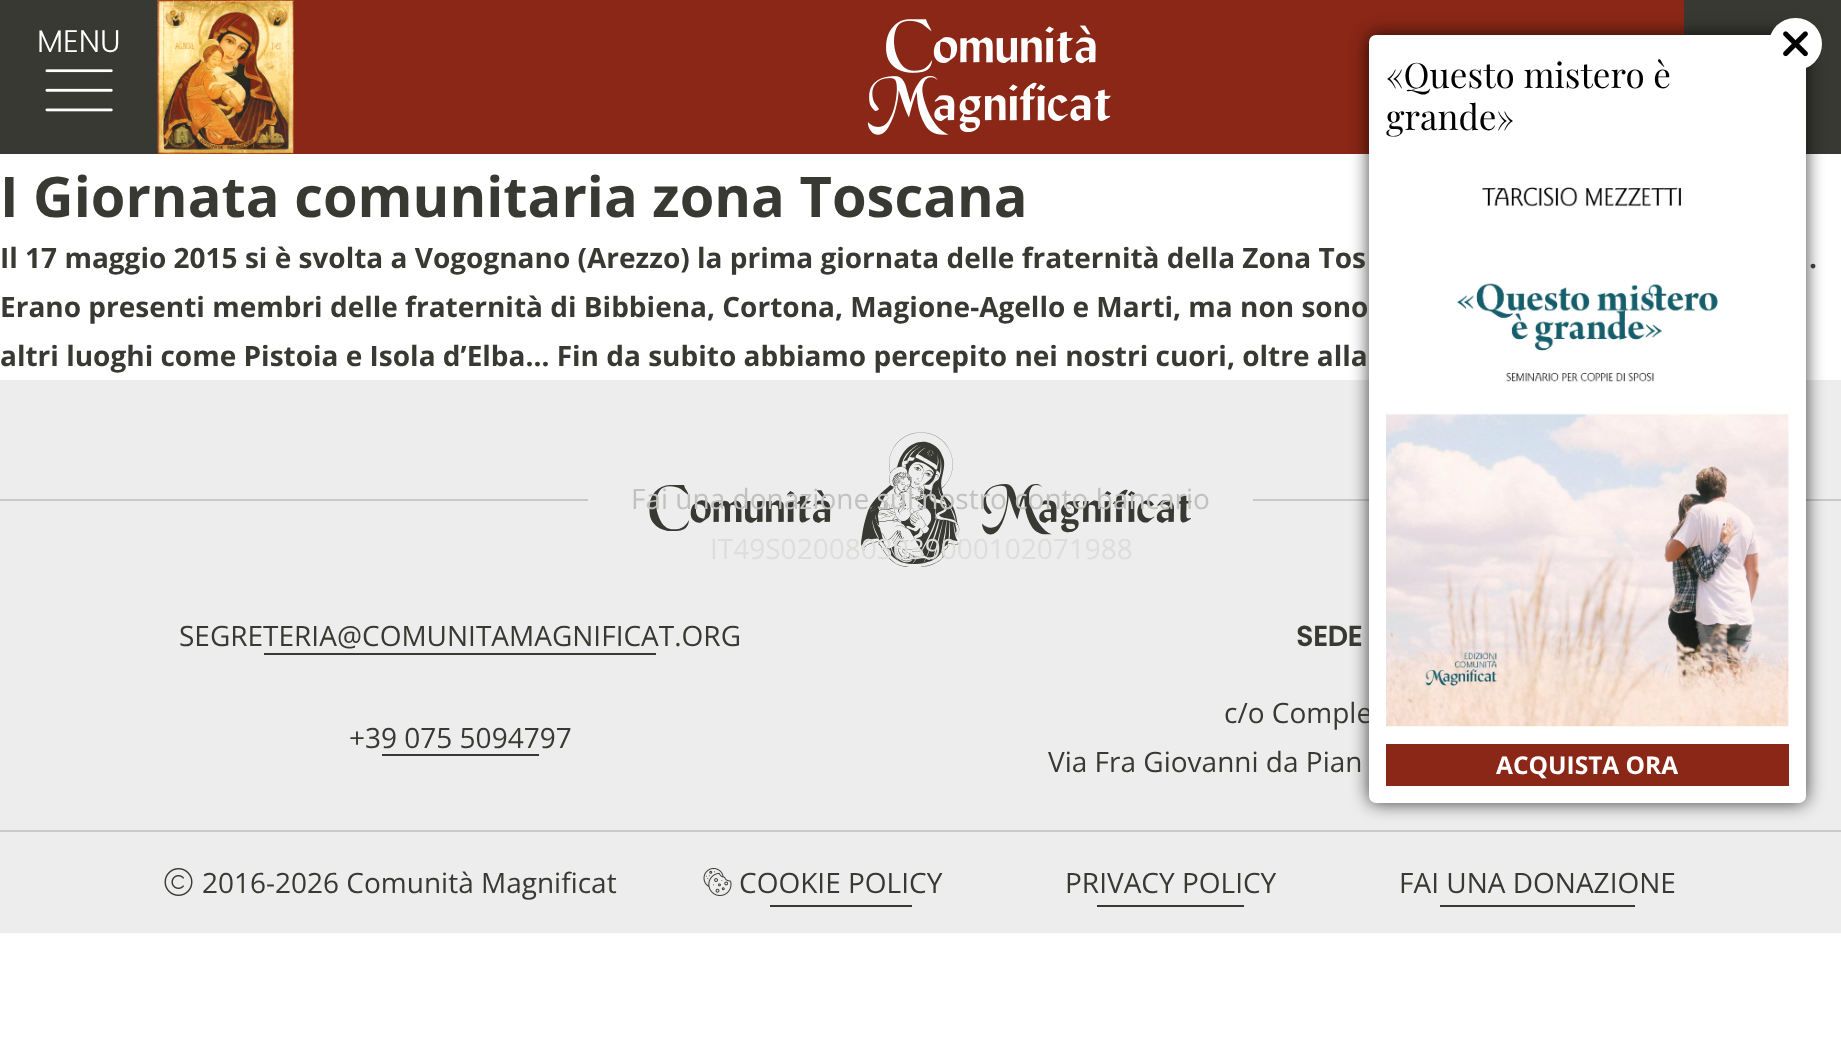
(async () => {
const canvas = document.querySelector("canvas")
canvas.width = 1841
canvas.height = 1038
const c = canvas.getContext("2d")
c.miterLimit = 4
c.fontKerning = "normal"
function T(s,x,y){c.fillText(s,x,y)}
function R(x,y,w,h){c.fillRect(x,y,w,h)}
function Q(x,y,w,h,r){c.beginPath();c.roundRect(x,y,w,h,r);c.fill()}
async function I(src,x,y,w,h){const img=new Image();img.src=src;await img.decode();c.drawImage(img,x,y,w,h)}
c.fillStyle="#fff"
R(0,0,1841,1038)
c.fillStyle="#383932"
R(0,0,1841,154)
c.font="300 31px Poppins"
c.fillStyle="#fff"
T("MENU",37,52)
await I("1.png",45,69,68,43)
c.fillStyle="#8a2716"
R(158,0,1526,154)
await I("2.png",157,0,137,154)
await I("3.png",867,19,244,116)
c.fillStyle="#ededed"
R(0,380,1841,553)
c.fillStyle="#c9c9c9"
R(1253,499,588,2)
R(0,830,1841,2)
c.fillStyle="#000000bf"
c.filter="blur(9px)"
c.beginPath()
c.roundRect(1369,35,437,768,7)
c.fill()
c.filter="none"
c.font="28px Open Sans"
c.fillStyle="#383932"
T("c/o Comple",1224,723)
c.fillStyle="#fff"
Q(1369,35,437,768,7)
Q(1769,18,53,52,26)
await I("4.png",1783,31,25,26)
c.font="35px Playfair Display"
c.fillStyle="#000"
T("«Questo mistero è",1386,88)
T("grande»",1386,130)
await I("5.png",1386,187,403,540)
c.fillStyle="#8a2716"
R(1386,744,403,42)
c.font="bold 24.5px Open Sans"
c.fillStyle="#fff"
T("ACQUISTA ORA",1496,774)
c.font="bold 56px Open Sans"
c.fillStyle="#383932"
T("I Giornata comunitaria zona Toscana",0,217)
c.font="bold 28px Open Sans"
T("Il 17 maggio 2015 si è svolta a Vogognano (Arezzo) la prima giornata delle fraternità della Zona Tos",0,268)
T(".",1809,268)
T("Erano presenti membri delle fraternità di Bibbiena, Cortona, Magione-Agello e Marti, ma non sono",0,317)
T("altri luoghi come Pistoia e Isola d’Elba… Fin da subito abbiamo percepito nei nostri cuori, oltre alla",0,366)
c.fillStyle="#c9c9c9"
R(0,499,588,2)
await I("6.png",649,432,543,135)
c.font="28px Open Sans"
c.fillStyle="#383932"
T("SEGRETERIA@COMUNITAMAGNIFICAT.ORG",179,646)
R(264,653,392,2)
T("+39 075 5094797",349,748)
R(382,754,157,2)
c.font="bold 28px Poppins"
T("SEDE",1296,646)
c.font="28px Open Sans"
T("Via Fra Giovanni da Pian",1048,772)
await I("7.png",164,868,29,28)
T("2016-2026 Comunità Magnificat",202,893)
await I("8.png",703,868,29,28)
T("COOKIE POLICY",739,893)
R(770,905,142,2)
T("PRIVACY POLICY",1065,893)
R(1097,905,147,2)
T("FAI UNA DONAZIONE",1399,893)
R(1440,905,195,2)
c.fillStyle="#c1c1c0"
T("Fai una donazione sul nostro conto bancario",631,509)
c.fillStyle="#dddddc"
T("IT49S0200803039000102071988",710,559)
})()
